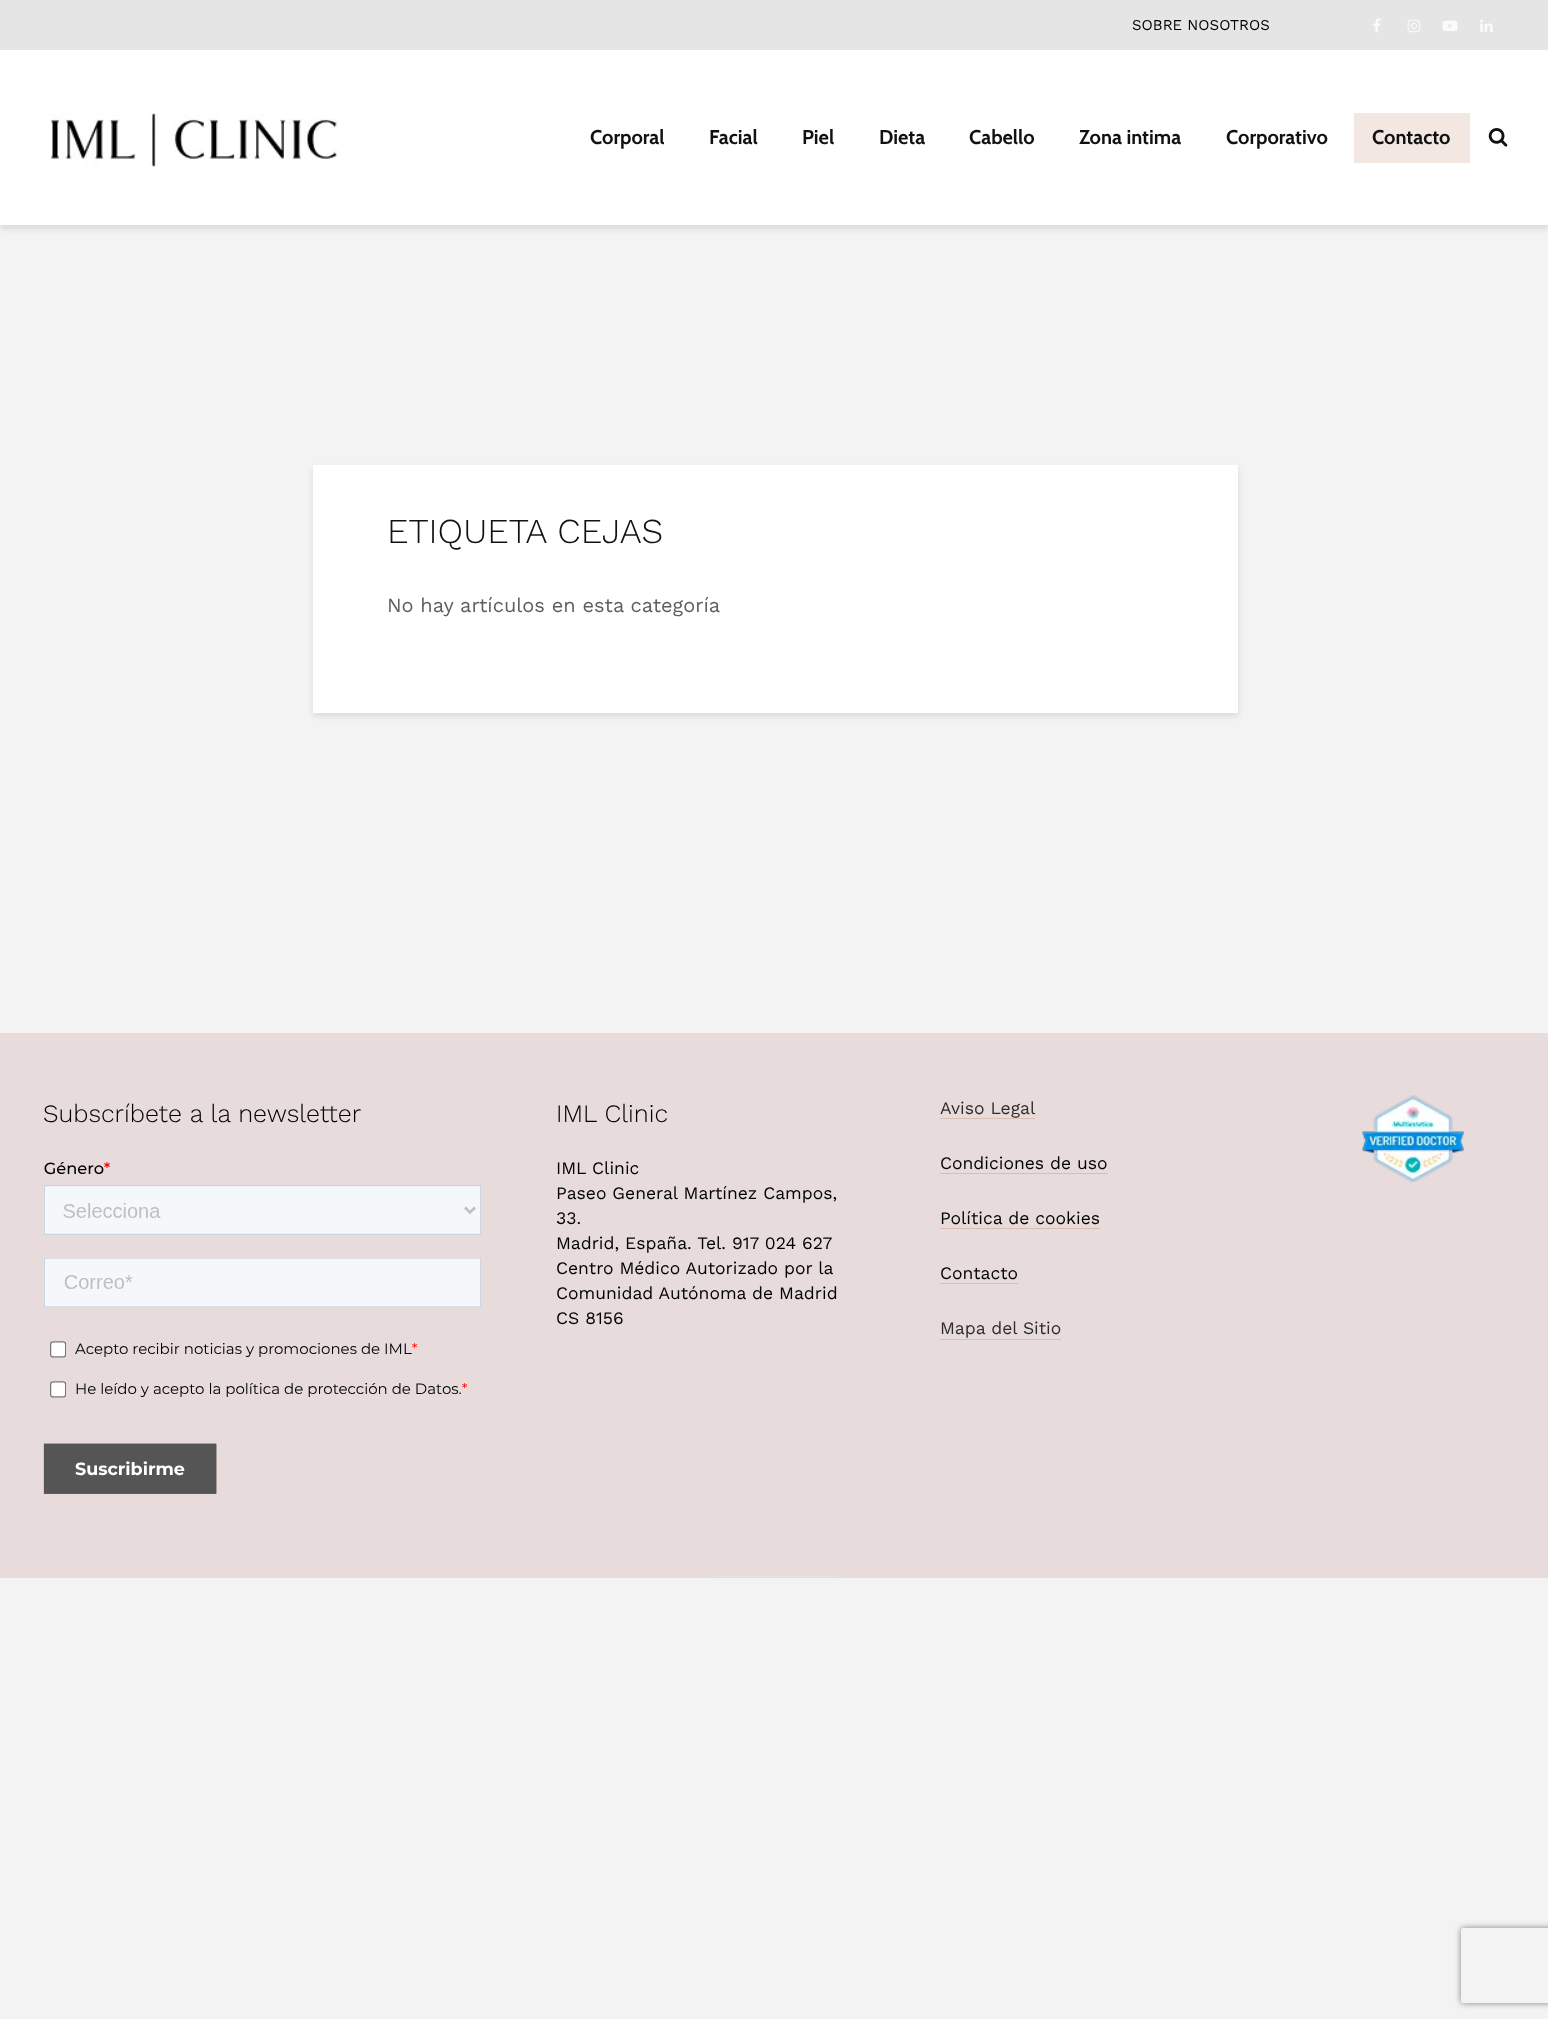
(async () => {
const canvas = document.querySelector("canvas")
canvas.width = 1548
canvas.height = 2019
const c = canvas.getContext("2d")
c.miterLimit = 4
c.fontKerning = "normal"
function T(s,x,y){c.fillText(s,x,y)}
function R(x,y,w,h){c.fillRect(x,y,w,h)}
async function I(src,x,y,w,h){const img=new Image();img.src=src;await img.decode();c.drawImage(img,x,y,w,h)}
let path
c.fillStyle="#f3f3f3"
R(0,0,1548,2019)
c.fillStyle="#0001011a"
c.filter="blur(3px)"
c.beginPath()
c.rect(0,4,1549,225)
c.fill()
c.filter="none"
c.fillStyle="#e5e5e5"
R(0,0,1548,50)
c.font="15px Work Sans"
c.fillStyle="#000"
T("SOBRE NOSOTROS",1132,30)
await I("1.png",1373,18,8,15)
await I("2.png",1407,19,14,14)
await I("3.png",1442,20,16,11)
await I("4.png",1480,19,13,13)
c.fillStyle="#fff"
R(0,50,1548,175)
await I("5.png",50,113,289,54)
c.font="bold 20px Cabin"
c.fillStyle="#111"
T("Corporal",590,144)
T("Facial",709,144)
T("Piel",802,144)
T("Dieta",879,144)
T("Cabello",969,144)
T("Zona intima",1079,144)
T("Corporativo",1226,144)
c.fillStyle="#f3e7e2"
R(1354,113,116,50)
c.fillStyle="#111"
T("Contacto",1372,144)
await I("6.png",1488,128,20,19)
c.fillStyle="#0001011a"
c.filter="blur(3px)"
c.beginPath()
c.rect(313,469,925,247)
c.fill()
c.filter="none"
c.fillStyle="#fff"
R(313,465,925,248)
c.font="300 35px Work Sans"
c.fillStyle="#111"
T("ETIQUETA CEJAS",387,543)
c.font="20px Work Sans"
c.fillStyle="#5e5e5e"
T("No hay artículos en esta categoría",387,612)
c.fillStyle="#e7dbdb"
R(0,1033,1548,545)
c.font="300 25px Work Sans"
c.fillStyle="#000"
T("Subscríbete a la newsletter",43,1122)
await I("7.png",43,1162,438,332)
T("IML Clinic",556,1122)
c.font="17.5px Work Sans"
T("IML Clinic",556,1174)
T("Paseo General Martínez Campos,",556,1199)
T("33.",556,1224)
T("Madrid, España. Tel. 917 024 627",556,1249)
T("Centro Médico Autorizado por la",556,1274)
T("Comunidad Autónoma de Madrid",556,1299)
T("CS 8156",556,1324)
c.fillStyle="#2e2c2c"
T("Aviso Legal",940,1114)
c.fillStyle="#dbbdb6"
R(940,1118,95,1)
c.fillStyle="#000"
T("Condiciones de uso",940,1169)
c.fillStyle="#dbbdb6"
R(940,1173,168,1)
c.fillStyle="#000"
T("Política de cookies",940,1224)
c.fillStyle="#dbbdb6"
R(940,1228,160,1)
c.fillStyle="#000"
T("Contacto",940,1279)
c.fillStyle="#dbbdb6"
R(940,1283,78,1)
c.fillStyle="#2e2c2c"
T("Mapa del Sitio",940,1334)
c.fillStyle="#dbbdb6"
R(940,1339,121,1)
await I("8.png",1362,1095,102,88)
c.fillStyle="#ece2e2"
R(713,1576,125,1)
c.save()
path = new Path2D("M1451 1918h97v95h-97zm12.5 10h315c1.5 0 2.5 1 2.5 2.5v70c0 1.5-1 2.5-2.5 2.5h-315c-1.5 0-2.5-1-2.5-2.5v-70c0-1.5 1-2.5 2.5-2.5z")
c.clip(path,"evenodd")
c.fillStyle="#808080"
c.filter="blur(3px)"
c.beginPath()
c.roundRect(1461,1928,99,75,2.5)
c.fill()
c.filter="none"
c.restore()
})()
